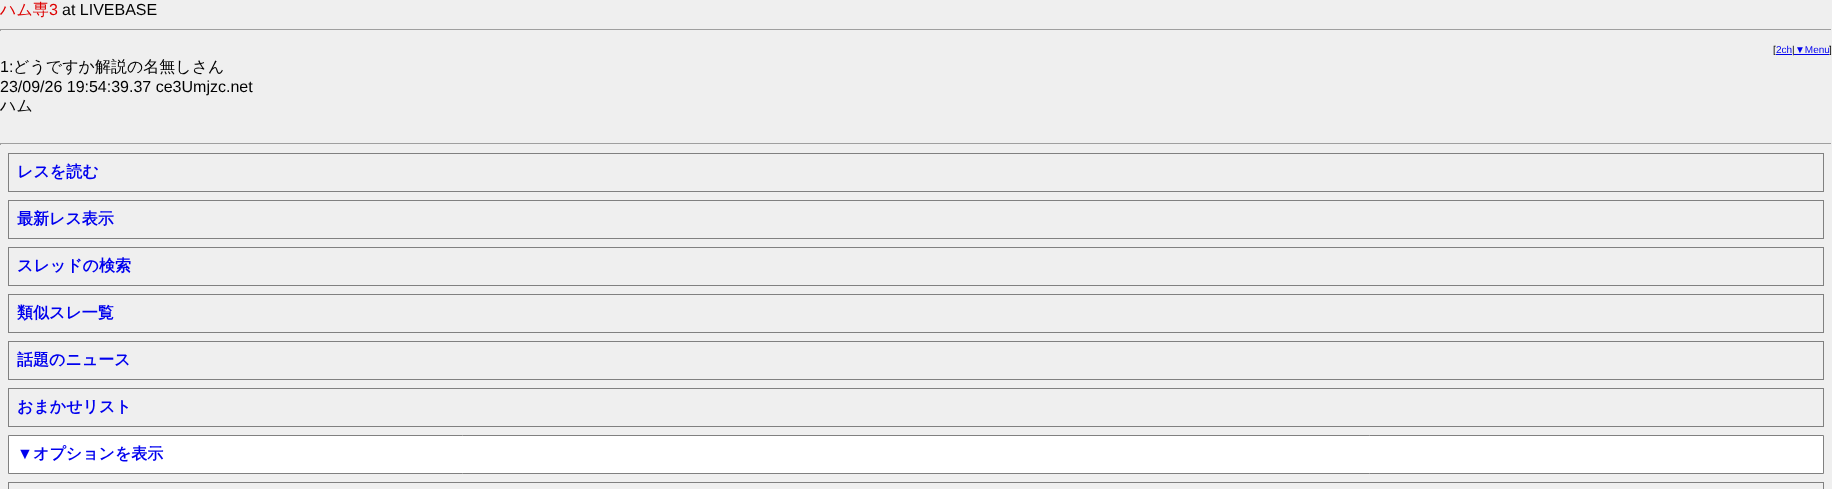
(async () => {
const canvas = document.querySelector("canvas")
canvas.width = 1832
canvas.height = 489
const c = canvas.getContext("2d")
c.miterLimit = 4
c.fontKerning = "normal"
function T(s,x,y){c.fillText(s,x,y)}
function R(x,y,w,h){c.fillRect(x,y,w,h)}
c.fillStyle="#efefef"
R(0,0,1832,489)
c.font="500 16px WenQuanYi Zen Hei"
c.fillStyle="#d00"
T("ハム専",0,15)
c.font="16px Liberation Sans"
c.fillStyle="#000"
T("at LIVEBASE",62,15)
c.fillStyle="#9f9f9f"
R(0,29,1832,1)
c.fillStyle="#eee"
R(1831,29,1,2)
c.fillStyle="#9f9f9f"
R(0,29,1,2)
c.font="10px Liberation Sans"
c.fillStyle="#000"
T("[",1773,53)
c.fillStyle="#00e"
R(1776,54,16,1)
T("2ch ▼Menu",1776,53)
c.fillStyle="#000"
T("|",1792,53)
c.fillStyle="#00e"
R(1794,54,35,1)
c.fillStyle="#000"
T("]",1829,53)
c.font="16px Liberation Sans"
T("1:",0,72)
c.font="500 16px WenQuanYi Zen Hei"
T("どうですか解説の名無しさん",13,72)
c.font="16px Liberation Sans"
T("23/09/26 19:54:39.37 ce3Umjzc.net",0,92)
c.font="500 16px WenQuanYi Zen Hei"
T("ハム",0,111)
c.fillStyle="#9f9f9f"
R(0,143,1832,1)
c.fillStyle="#eee"
R(1831,143,1,2)
c.fillStyle="#9f9f9f"
R(0,143,1,2)
c.strokeStyle="#808080"
c.strokeRect(8.5,153.5,1815,38)
c.font="bold 16px WenQuanYi Zen Hei"
c.fillStyle="#00e"
T("レスを読む",17,177)
c.strokeRect(8.5,200.5,1815,38)
T("最新レス表示",17,224)
c.strokeRect(8.5,247.5,1815,38)
T("スレッドの検索",17,271)
c.strokeRect(8.5,294.5,1815,38)
T("類似スレ一覧",17,318)
c.strokeRect(8.5,341.5,1815,38)
T("話題のニュース",17,365)
c.strokeRect(8.5,388.5,1815,38)
T("おまかせリスト",17,412)
c.fillStyle="#fff"
c.beginPath()
c.rect(8.5,435.5,1815,38)
c.fill()
c.stroke()
c.font="bold 16px Liberation Sans"
c.fillStyle="#00e"
T("▼",17,459)
c.font="bold 16px WenQuanYi Zen Hei"
T("オプションを表示",33,459)
c.strokeRect(8.5,482.5,1815,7)
c.font="16px Liberation Sans"
c.fillStyle="#d00"
T("3",49,15)
})()
